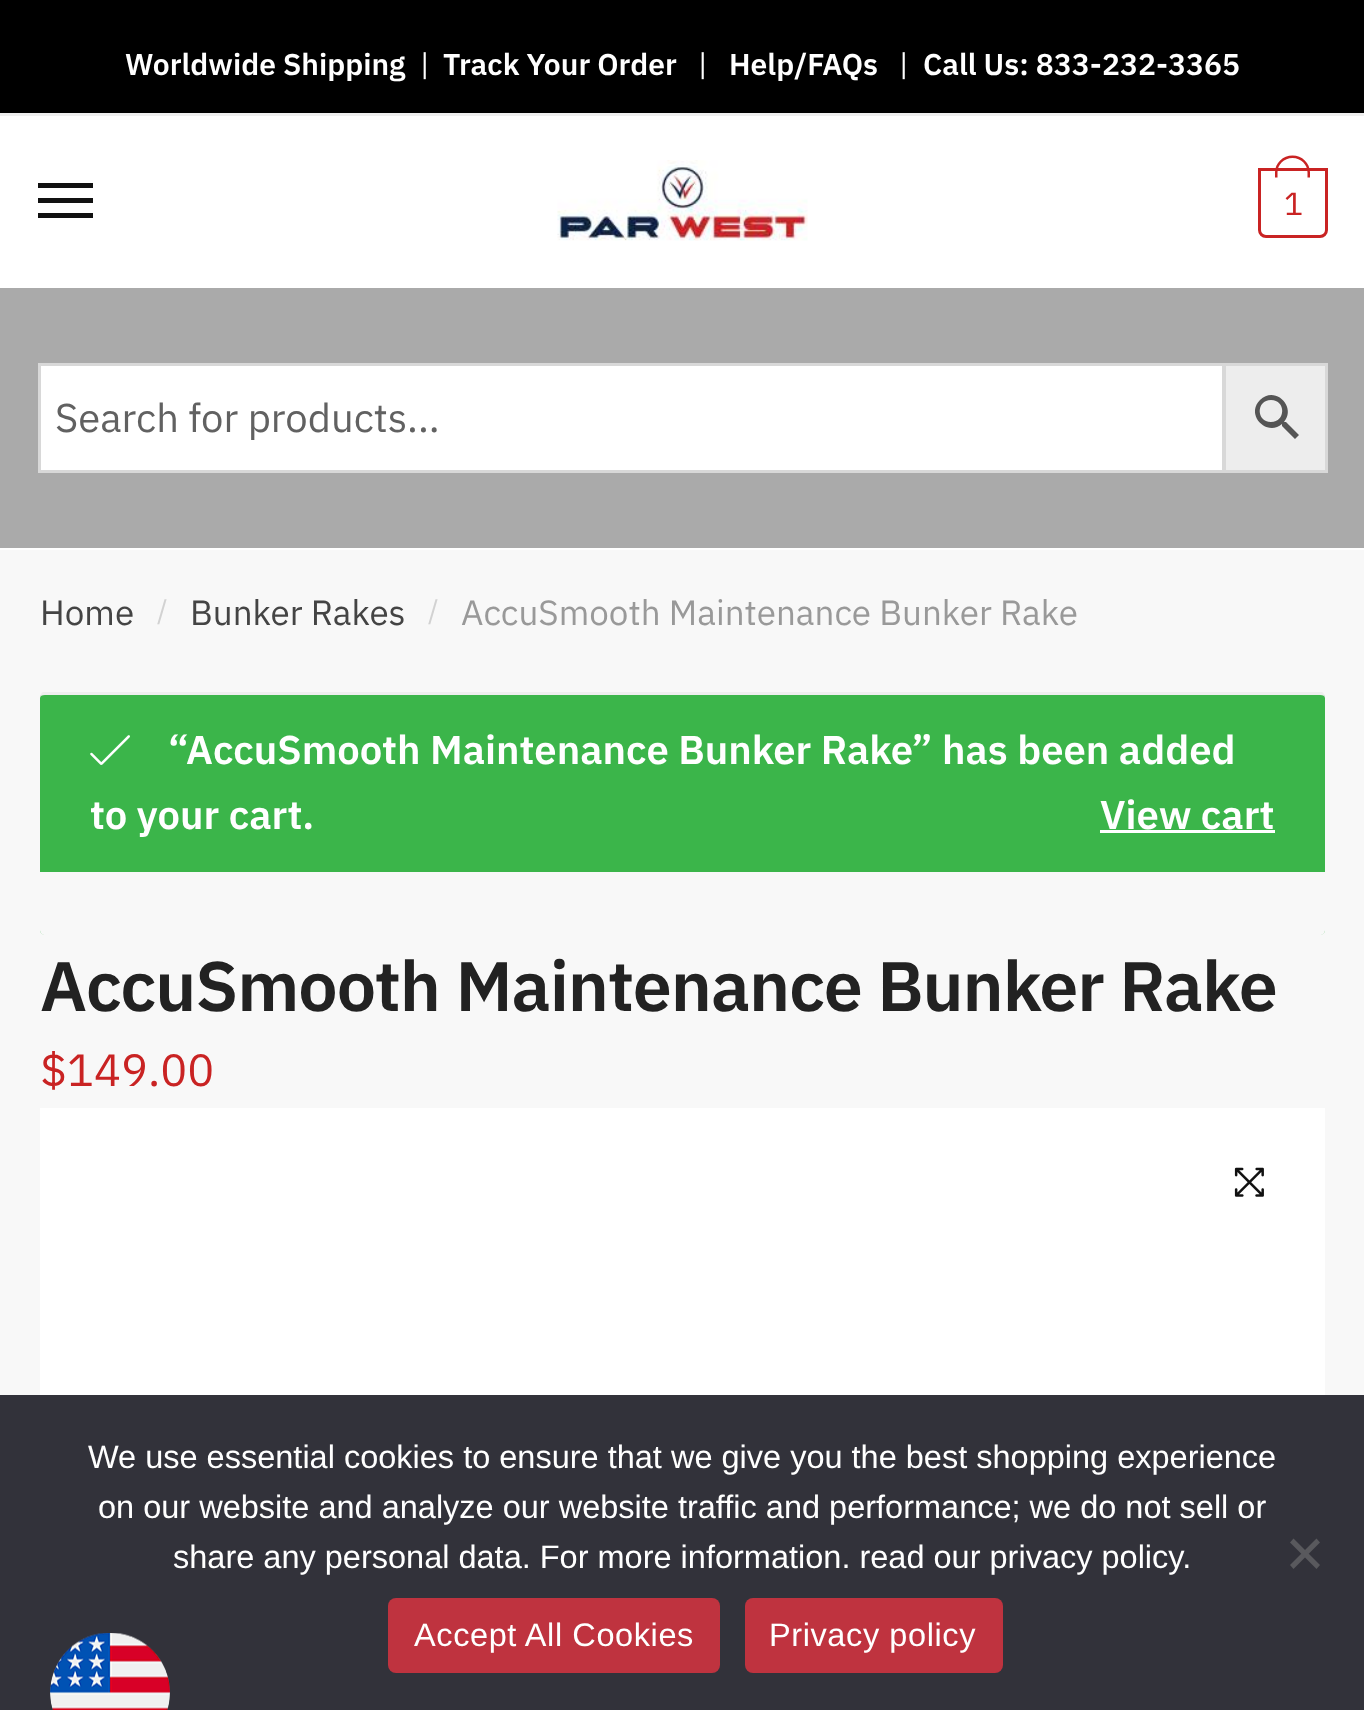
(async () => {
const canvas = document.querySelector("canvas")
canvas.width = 1364
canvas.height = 1710
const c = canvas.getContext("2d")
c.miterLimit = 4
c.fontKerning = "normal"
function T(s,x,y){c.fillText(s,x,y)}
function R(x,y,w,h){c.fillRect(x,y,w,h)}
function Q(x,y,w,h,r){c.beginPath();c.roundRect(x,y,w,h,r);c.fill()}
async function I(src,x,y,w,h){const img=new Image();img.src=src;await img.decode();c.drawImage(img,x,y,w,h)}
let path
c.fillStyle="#fff"
R(0,0,1364,1710)
c.fillStyle="#000"
R(0,0,1364,113)
c.fillStyle="#eee"
R(0,113,1364,3)
c.font="600 30px IBM Plex Sans"
c.fillStyle="#fff"
T("Worldwide Shipping",125,75)
c.font="30px IBM Plex Sans"
T("|",420,75)
c.font="600 30px IBM Plex Sans"
T("Track Your Order",443,75)
c.font="30px IBM Plex Sans"
T("|",698,75)
c.font="600 30px IBM Plex Sans"
T("Help/FAQs",729,75)
c.font="30px IBM Plex Sans"
T("|",899,75)
c.font="600 30px IBM Plex Sans"
T("Call Us: 833-232-3365",923,75)
c.fillStyle="#111"
R(38,183,55,5)
R(38,198,55,5)
R(38,213,55,5)
await I("1.png",557,160,251,81)
c.beginPath()
c.roundRect(1259.5,169.5,67,67,[0,0,6.5,6.5])
c.strokeStyle="#c92323"
c.lineWidth=3
c.stroke()
c.fillStyle="#c92323"
path = new Path2D("M1292.5 155.5c9.5 0 17.5 7.5 17.5 17v5h-35v-5c0-9.5 8-17 17.5-17zm0 2.5c8.5 0 15 6.5 15 14.5v5h-30v-5c0-8 6.5-14.5 15-14.5z")
c.fill(path,"evenodd")
c.letterSpacing="-2px"
c.font="32px IBM Plex Sans"
T("1",1284,215)
c.fillStyle="#aaa"
R(0,288,1364,260)
c.fillStyle="#ededed"
c.beginPath()
c.rect(1224.5,364.5,102,107)
c.fill()
c.strokeStyle="#d8d8d8"
c.stroke()
c.fillStyle="#fff"
c.beginPath()
c.rect(39.5,364.5,1184,107)
c.fill()
c.stroke()
c.letterSpacing="0px"
c.font="40px IBM Plex Sans"
c.fillStyle="#616161"
T("Search for products...",55,432)
c.fillStyle="#555"
path = new Path2D("M1286 422h-2c13-15-9-37-24-22c-15 15 7 37 22 24v2l13 13l4-4zm-15 0c-15 0-15-22 0-22c15 0 15 22 0 22z")
c.fill(path)
c.fillStyle="#f8f8f8"
R(0,550,1364,845)
c.font="35px IBM Plex Sans"
c.fillStyle="#444"
T("Home",40,625)
c.font="28px IBM Plex Sans"
c.fillStyle="#d2d2d2"
T("/",157,620)
c.font="35px IBM Plex Sans"
c.fillStyle="#444"
T("Bunker Rakes",190,625)
c.font="28px IBM Plex Sans"
c.fillStyle="#d2d2d2"
T("/",428,620)
c.font="35px IBM Plex Sans"
c.fillStyle="#999"
T("AccuSmooth Maintenance Bunker Rake",461,625)
c.fillStyle="#3bb54a"
Q(40,693,1285,242,5)
c.fillStyle="#eee"
path = new Path2D("M45 695c-3 0-5 1-5 3c0-2 1-5 3-6h1279c2 1 3 4 3 6c0-2-2-3-5-3z")
c.fill(path)
c.fillStyle="#f8f8f8"
path = new Path2D("M1325 930v-58h-1285v58c0 3 2 5 5 5h1275c3 0 5-2 5-5z")
c.fill(path)
await I("2.png",90,735,40,30)
c.font="600 40px IBM Plex Sans"
c.fillStyle="#fff"
T("“AccuSmooth Maintenance Bunker Rake” has been added",168,764)
T("to your cart.",90,829)
T("View cart",1100,829)
R(1100,830,175,3)
c.letterSpacing="-1.05px"
c.font="600 70px IBM Plex Sans"
c.fillStyle="#222"
T("AccuSmooth Maintenance Bunker Rake",40,1011)
c.letterSpacing="0px"
c.font="45px IBM Plex Sans"
c.fillStyle="#c92323"
T("$149.00",40,1086)
await I("3.png",40,1108,1285,287)
await I("4.png",1234,1167,30,30)
c.fillStyle="#32323a"
R(0,1395,1364,315)
c.font="32.5px Liberation Sans"
c.fillStyle="#fff"
T("We use essential cookies to ensure that we give you the best shopping experience",88,1468)
T("on our website and analyze our website traffic and performance; we do not sell or",98,1518)
T("share any personal data. For more information. read our privacy policy.",173,1568)
c.fillStyle="#59595d"
path = new Path2D("M1316.5 1538.5l3.5 4l-26.5 26.5l-3.5-4z")
c.fill(path)
path = new Path2D("M1290 1542.5l3.5-4l26.5 26.5l-3.5 4z")
c.fill(path)
c.fillStyle="#bf333f"
Q(388,1598,332,75,8)
c.letterSpacing="0.6px"
c.fillStyle="#fff"
T("Accept All Cookies",414,1646)
c.fillStyle="#bf333f"
Q(745,1598,258,75,8)
c.fillStyle="#fff"
T("Privacy policy",769,1646)
await I("5.png",50,1633,120,77)
})()
